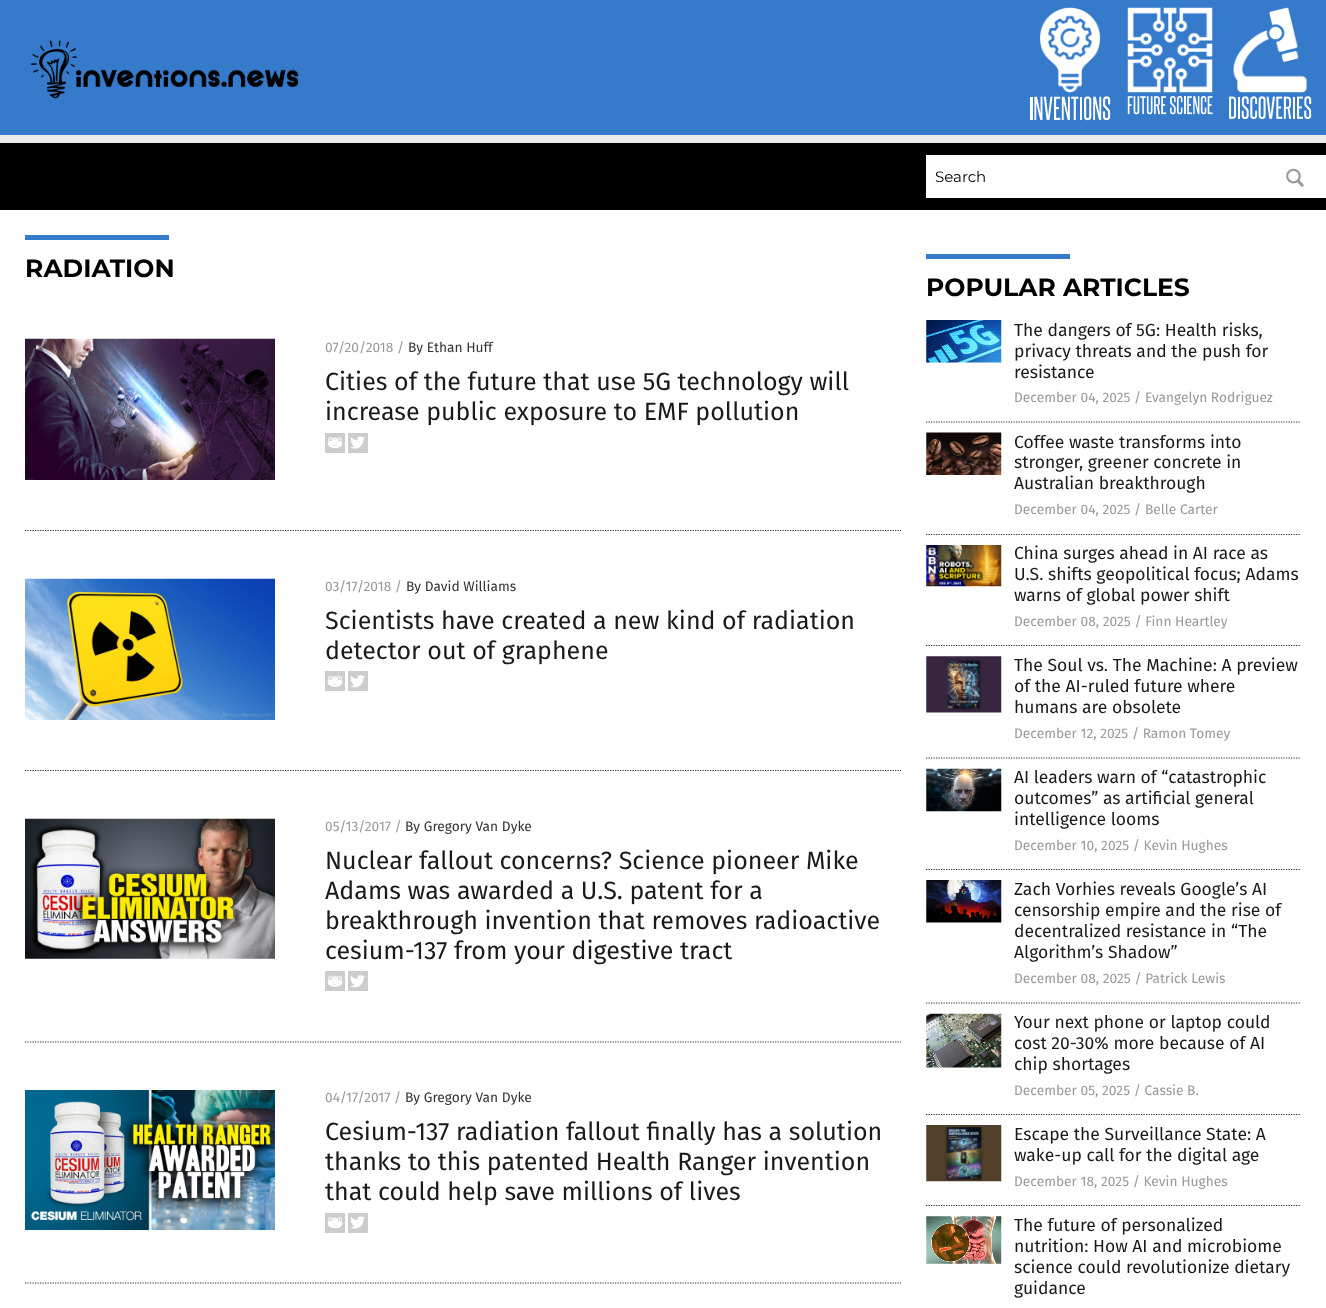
(async () => {
const canvas = document.querySelector("canvas")
canvas.width = 1326
canvas.height = 1308
const c = canvas.getContext("2d")
c.miterLimit = 4
c.fontKerning = "normal"
function T(s,x,y){c.fillText(s,x,y)}
function R(x,y,w,h){c.fillRect(x,y,w,h)}
async function I(src,x,y,w,h){const img=new Image();img.src=src;await img.decode();c.drawImage(img,x,y,w,h)}
let path
c.fillStyle="#000"
R(0,0,1326,1308)
c.fillStyle="#367bcb"
R(0,0,1326,135)
await I("1.png",30,40,269,59)
await I("2.png",1040,7,61,86)
await I("3.png",1030,96,81,25)
await I("4.png",1127,7,86,86)
await I("5.png",1127,96,86,19)
await I("6.png",1233,7,74,86)
await I("7.png",1229,96,83,23)
c.fillStyle="#ececec"
R(0,135,1326,8)
c.fillStyle="#fff"
R(926,155,400,43)
c.font="15px Montserrat"
c.fillStyle="#000"
T("Search",935,182)
await I("8.png",1286,168,18,19)
c.fillStyle="#fff"
R(0,210,1326,1098)
c.fillStyle="#367bcb"
R(25,235,144,5)
c.font="bold 25px Montserrat"
c.fillStyle="#000"
T("RADIATION",25,277)
path = new Path2D("M25 530.5h876")
c.strokeStyle="#343434"
c.lineWidth=1.2
c.setLineDash([1.25,1.25])
c.stroke(path)
await I("9.png",25,338,250,142)
c.font="13.75px Fira Sans"
c.fillStyle="#999"
T("07/20/2018 /",325,352)
c.fillStyle="#333"
T("By Ethan Huff",408,352)
c.font="25px Fira Sans"
c.fillStyle="#1a1a1a"
T("Cities of the future that use 5G technology will",325,390)
T("increase public exposure to EMF pollution",325,420)
await I("10.png",325,433,20,20)
await I("11.png",348,433,20,20)
path = new Path2D("M25 770.5h876")
c.stroke(path)
await I("12.png",25,578,250,142)
c.font="13.75px Fira Sans"
c.fillStyle="#999"
T("03/17/2018 /",325,591)
c.fillStyle="#333"
T("By David Williams",406,591)
c.font="25px Fira Sans"
c.fillStyle="#1a1a1a"
T("Scientists have created a new kind of radiation",325,629)
T("detector out of graphene",325,659)
await I("13.png",325,671,20,20)
await I("14.png",348,671,20,20)
path = new Path2D("M25 1042h876")
c.stroke(path)
await I("15.png",25,818,250,141)
c.font="13.75px Fira Sans"
c.fillStyle="#999"
T("05/13/2017 /",325,831)
c.fillStyle="#333"
T("By Gregory Van Dyke",405,831)
c.font="25px Fira Sans"
c.fillStyle="#1a1a1a"
T("Nuclear fallout concerns? Science pioneer Mike",325,869)
T("Adams was awarded a U.S. patent for a",325,899)
T("breakthrough invention that removes radioactive",325,929)
T("cesium-137 from your digestive tract",325,959)
await I("13.png",325,971,20,20)
await I("14.png",348,971,20,20)
path = new Path2D("M25 1283h876")
c.stroke(path)
await I("16.png",25,1090,250,140)
c.font="13.75px Fira Sans"
c.fillStyle="#999"
T("04/17/2017 /",325,1102)
c.fillStyle="#333"
T("By Gregory Van Dyke",405,1102)
c.font="25px Fira Sans"
c.fillStyle="#1a1a1a"
T("Cesium-137 radiation fallout finally has a solution",325,1140)
T("thanks to this patented Health Ranger invention",325,1170)
T("that could help save millions of lives",325,1200)
await I("10.png",325,1213,20,20)
await I("11.png",348,1213,20,20)
c.fillStyle="#367bcb"
R(926,254,144,5)
c.font="bold 25px Montserrat"
c.fillStyle="#000"
T("POPULAR ARTICLES",926,296)
path = new Path2D("M926 422h375")
c.stroke(path)
await I("17.png",926,320,76,43)
c.font="17.5px Fira Sans"
c.fillStyle="#1a1a1a"
T("The dangers of 5G: Health risks,",1014,336)
T("privacy threats and the push for",1014,357)
T("resistance",1014,378)
c.font="13.75px Fira Sans"
c.fillStyle="#999"
T("December 04, 2025 / Evangelyn Rodriguez",1014,402)
path = new Path2D("M926 534.5h375")
c.stroke(path)
await I("18.png",926,432,76,43)
c.font="17.5px Fira Sans"
c.fillStyle="#1a1a1a"
T("Coffee waste transforms into",1014,448)
T("stronger, greener concrete in",1014,468)
T("Australian breakthrough",1014,489)
c.font="13.75px Fira Sans"
c.fillStyle="#999"
T("December 04, 2025 / Belle Carter",1014,514)
path = new Path2D("M926 645.5h375")
c.stroke(path)
await I("19.png",926,545,76,42)
c.font="17.5px Fira Sans"
c.fillStyle="#1a1a1a"
T("China surges ahead in AI race as",1014,559)
T("U.S. shifts geopolitical focus; Adams",1014,580)
T("warns of global power shift",1014,601)
c.font="13.75px Fira Sans"
c.fillStyle="#999"
T("December 08, 2025 / Finn Heartley",1014,626)
path = new Path2D("M926 758h375")
c.stroke(path)
await I("20.png",926,656,76,57)
c.font="17.5px Fira Sans"
c.fillStyle="#1a1a1a"
T("The Soul vs. The Machine: A preview",1014,671)
T("of the AI-ruled future where",1014,692)
T("humans are obsolete",1014,713)
c.font="13.75px Fira Sans"
c.fillStyle="#999"
T("December 12, 2025 / Ramon Tomey",1014,738)
path = new Path2D("M926 869.5h375")
c.stroke(path)
await I("21.png",926,768,76,44)
c.font="17.5px Fira Sans"
c.fillStyle="#1a1a1a"
T("AI leaders warn of “catastrophic",1014,783)
T("outcomes” as artificial general",1014,804)
T("intelligence looms",1014,825)
c.font="13.75px Fira Sans"
c.fillStyle="#999"
T("December 10, 2025 / Kevin Hughes",1014,850)
path = new Path2D("M926 1003h375")
c.stroke(path)
await I("22.png",926,880,76,43)
c.font="17.5px Fira Sans"
c.fillStyle="#1a1a1a"
T("Zach Vorhies reveals Google’s AI",1014,895)
T("censorship empire and the rise of",1014,916)
T("decentralized resistance in “The",1014,937)
T("Algorithm’s Shadow”",1014,958)
c.font="13.75px Fira Sans"
c.fillStyle="#999"
T("December 08, 2025 / Patrick Lewis",1014,983)
path = new Path2D("M926 1114.5h375")
c.stroke(path)
await I("23.png",926,1013,76,55)
c.font="17.5px Fira Sans"
c.fillStyle="#1a1a1a"
T("Your next phone or laptop could",1014,1028)
T("cost 20-30% more because of AI",1014,1049)
T("chip shortages",1014,1070)
c.font="13.75px Fira Sans"
c.fillStyle="#999"
T("December 05, 2025 / Cassie B.",1014,1095)
path = new Path2D("M926 1205.5h375")
c.stroke(path)
await I("24.png",926,1125,76,57)
c.font="17.5px Fira Sans"
c.fillStyle="#1a1a1a"
T("Escape the Surveillance State: A",1014,1140)
T("wake-up call for the digital age",1014,1161)
c.font="13.75px Fira Sans"
c.fillStyle="#999"
T("December 18, 2025 / Kevin Hughes",1014,1186)
await I("25.png",926,1216,76,48)
c.font="17.5px Fira Sans"
c.fillStyle="#1a1a1a"
T("The future of personalized",1014,1231)
T("nutrition: How AI and microbiome",1014,1252)
T("science could revolutionize dietary",1014,1273)
T("guidance",1014,1294)
})()
